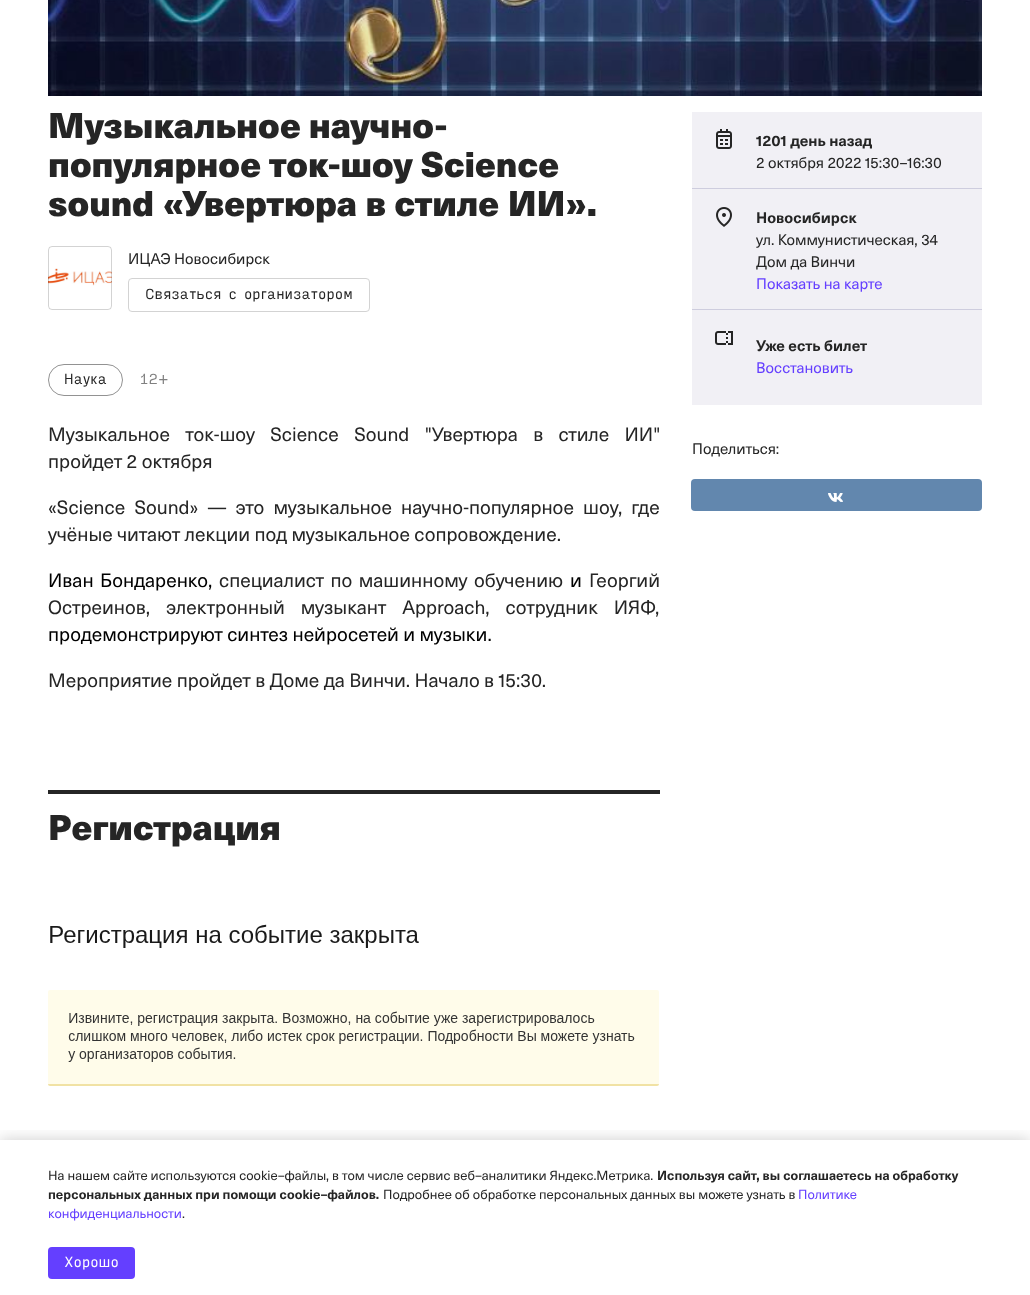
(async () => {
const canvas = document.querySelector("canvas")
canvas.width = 1030
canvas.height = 1295
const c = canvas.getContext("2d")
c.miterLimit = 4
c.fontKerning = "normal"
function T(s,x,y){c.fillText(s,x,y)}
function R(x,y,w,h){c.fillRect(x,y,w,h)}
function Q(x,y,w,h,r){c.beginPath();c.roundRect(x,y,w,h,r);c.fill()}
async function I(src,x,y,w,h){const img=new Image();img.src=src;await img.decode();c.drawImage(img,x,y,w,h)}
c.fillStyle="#fff"
R(0,0,1030,1295)
await I("1.png",48,0,934,96)
c.font="900 35px 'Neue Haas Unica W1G'"
c.fillStyle="#252525"
T("Музыкальное научно-",48,138)
T("популярное ток-шоу Science",48,177)
c.wordSpacing="0.5px"
T("sound «Увертюра в стиле ИИ».",48,216)
await I("2.png",48,268,64,18)
c.beginPath()
c.roundRect(48.5,246.5,63,63,3.5)
c.strokeStyle="#25252533"
c.stroke()
c.wordSpacing="0px"
c.font="15px 'Neue Haas Unica W1G'"
T("ИЦАЭ Новосибирск",128,264)
c.beginPath()
c.roundRect(128.5,278.5,241,33,3.5)
c.strokeStyle="#d3d3d3"
c.stroke()
c.font="14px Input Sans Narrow"
T("Связаться с организатором",145,299)
c.beginPath()
c.roundRect(48.5,364.5,74,31,15.5)
c.strokeStyle="#929292"
c.stroke()
T("Наука",64,384)
c.fillStyle="#808080"
T("12+",139,384)
c.wordSpacing="11px"
c.font="19px 'Neue Haas Unica W1G'"
c.fillStyle="#252525"
T("Музыкальное ток-шоу Science Sound \"Увертюра в стиле ИИ\"",48,441)
c.wordSpacing="0px"
T("пройдет 2 октября",48,468)
c.wordSpacing="4.75px"
T("«Science Sound» — это музыкальное научно-популярное шоу, где",48,514)
c.wordSpacing="0px"
T("учёные читают лекции под музыкальное сопровождение.",48,541)
c.wordSpacing="2px"
c.fillStyle="#000"
T("Иван Бондаренко,",48,587)
c.fillStyle="#252525"
T("специалист по машинному обучению",219,587)
c.wordSpacing="0px"
c.fillStyle="#000"
T("и",570,587)
c.fillStyle="#252525"
T("Георгий",589,587)
c.wordSpacing="11.5px"
T("Остреинов, электронный музыкант Approach, сотрудник ИЯФ,",48,614)
c.wordSpacing="0px"
c.fillStyle="#000"
T("продемонстрируют синтез нейросетей и музыки.",48,641)
c.font="19px 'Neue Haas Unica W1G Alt'"
c.fillStyle="#252525"
T("Мероприятие пройдет в Доме да Винчи. Начало в 15:30.",48,687)
R(48,790,612,4)
c.font="900 35px 'Neue Haas Unica W1G'"
T("Регистрация",48,840)
await I("3.png",48,924,611,162)
c.fillStyle="#f1f0f5"
R(692,112,290,76)
await I("4.png",716,129,16,20)
c.font="bold 15px 'Neue Haas Unica W1G Alt'"
c.fillStyle="#252525"
T("1201 день назад",756,146)
c.font="15px 'Neue Haas Unica W1G Alt'"
T("2 октября 2022 15:30–16:30",756,168)
c.fillStyle="#f1f0f5"
R(692,189,290,120)
c.fillStyle="#cecdde"
R(692,188,290,1)
await I("5.png",716,207,16,20)
c.font="bold 15px 'Neue Haas Unica W1G'"
c.fillStyle="#252525"
T("Новосибирск",756,223)
c.font="15px 'Neue Haas Unica W1G'"
T("ул. Коммунистическая, 34",756,245)
T("Дом да Винчи",756,267)
c.fillStyle="#643fff"
T("Показать на карте",756,289)
c.fillStyle="#f1f0f5"
R(692,310,290,95)
c.fillStyle="#cecdde"
R(692,309,290,1)
await I("6.png",715,331,18,14)
c.font="bold 15px 'Neue Haas Unica W1G'"
c.fillStyle="#252525"
T("Уже есть билет",756,351)
c.font="15px 'Neue Haas Unica W1G'"
c.fillStyle="#643fff"
T("Восстановить",756,373)
c.fillStyle="#252525"
T("Поделиться:",692,454)
c.fillStyle="#6287ae"
Q(691,479,291,32,4)
await I("7.png",828,493,15,9)
c.save()
c.beginPath()
c.rect(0,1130,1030,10)
c.clip()
c.fillStyle="#00000033"
c.filter="blur(8px)"
c.beginPath()
c.rect(0,1140,1030,155)
c.fill()
c.filter="none"
c.restore()
c.font="13px 'Neue Haas Unica W1G'"
c.fillStyle="#252525"
T("На нашем сайте используются cookie–файлы, в том числе сервис веб–аналитики Яндекс.Метрика.",48,1180)
c.font="bold 13px 'Neue Haas Unica W1G'"
T("Используя сайт, вы соглашаетесь на обработку",657,1180)
T("персональных данных при помощи cookie–файлов.",48,1199)
c.font="13px 'Neue Haas Unica W1G'"
T("Подробнее об обработке персональных данных вы можете узнать в",383,1199)
c.fillStyle="#643fff"
T("Политике",798,1199)
T("конфиденциальности",48,1218)
c.fillStyle="#252525"
T(".",182,1218)
c.fillStyle="#643fff"
Q(48,1247,87,32,4)
c.font="14px Input Sans Narrow"
c.fillStyle="#fff"
T("Хорошо",64,1267)
})()
